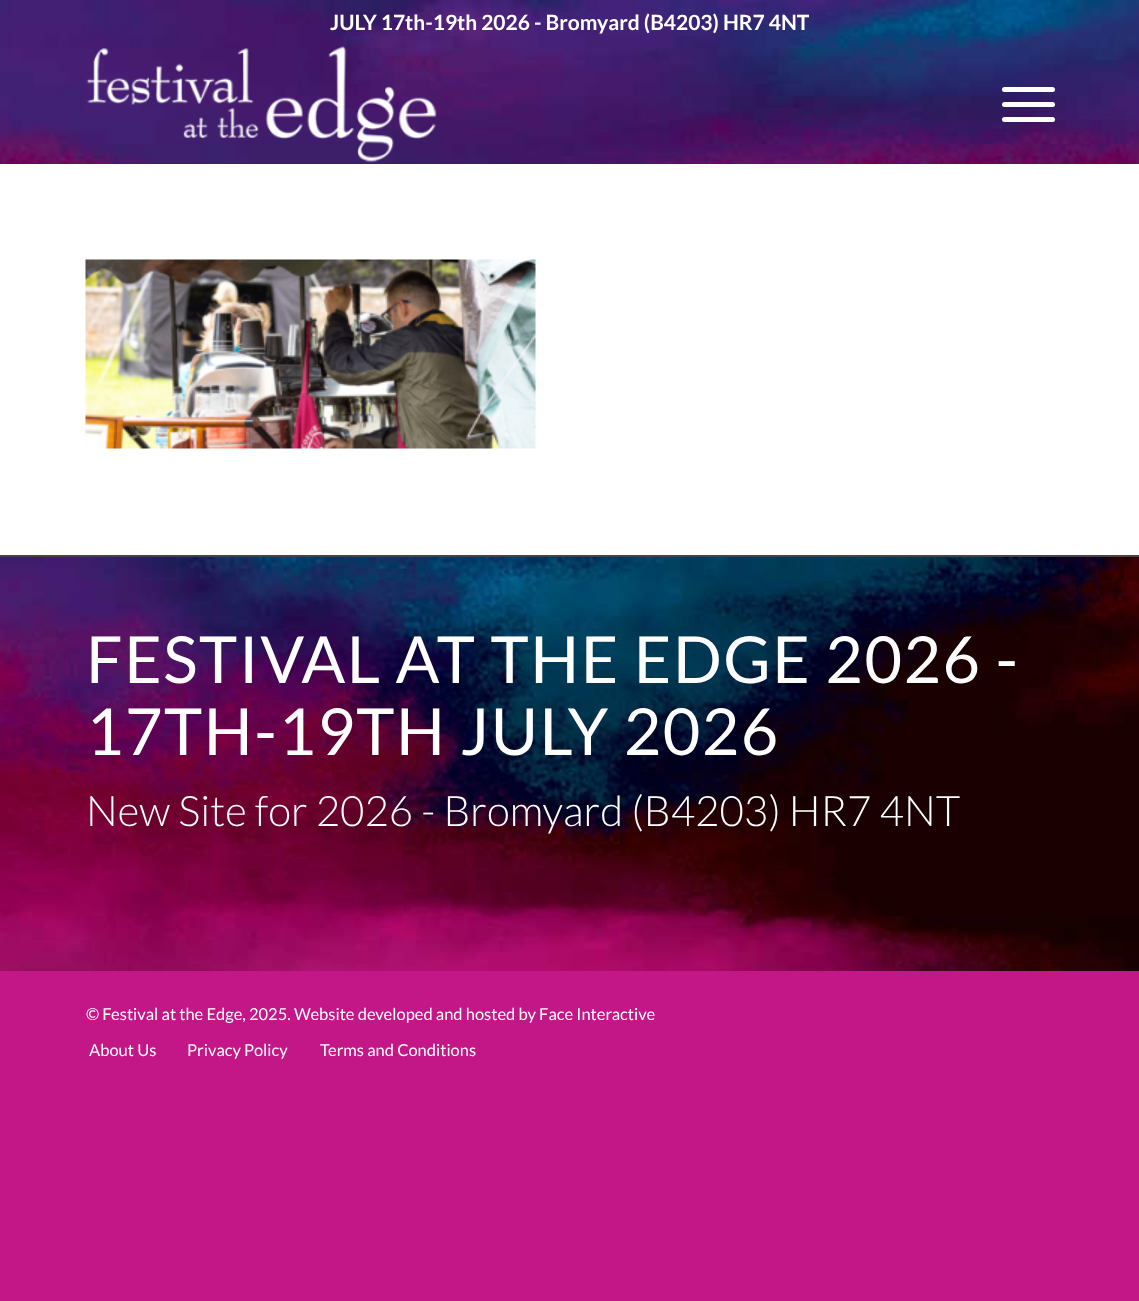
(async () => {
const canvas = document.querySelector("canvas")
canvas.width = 1139
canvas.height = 1301
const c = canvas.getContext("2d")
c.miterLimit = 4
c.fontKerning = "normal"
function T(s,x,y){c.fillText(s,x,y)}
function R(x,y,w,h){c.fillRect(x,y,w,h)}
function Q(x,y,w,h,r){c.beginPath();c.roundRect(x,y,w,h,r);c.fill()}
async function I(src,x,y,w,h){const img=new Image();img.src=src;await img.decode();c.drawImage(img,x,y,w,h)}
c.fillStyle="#c31687"
R(0,0,1139,1301)
c.fillStyle="#fff"
R(0,164,1139,391)
await I("1.png",0,0,1139,164)
c.font="bold 21px Lato"
T("JULY 17th-19th 2026 - Bromyard (B4203) HR7 4NT",330,30)
await I("2.png",86,45,351,118)
Q(1002,102,53,5,2.5)
Q(1002,87,53,5,2.5)
Q(1002,117,53,5,2.5)
await I("3.png",85,259,451,190)
await I("4.png",0,557,1139,414)
c.fillStyle="#444"
R(0,555,1139,2)
c.letterSpacing="1.5px"
c.font="64.75px Lato"
c.fillStyle="#fff"
T("FESTIVAL AT THE EDGE 2026 -",86,683)
T("17TH-19TH JULY 2026",86,755)
c.letterSpacing="0px"
c.font="300 42px Lato"
T("New Site for 2026 - Bromyard (B4203) HR7 4NT",86,826)
c.font="16.5px Lato"
T("© Festival at the Edge, 2025. Website developed and hosted by Face Interactive",86,1020)
T("About Us",89,1056)
T("Privacy Policy",187,1056)
T("Terms and Conditions",320,1056)
})()
